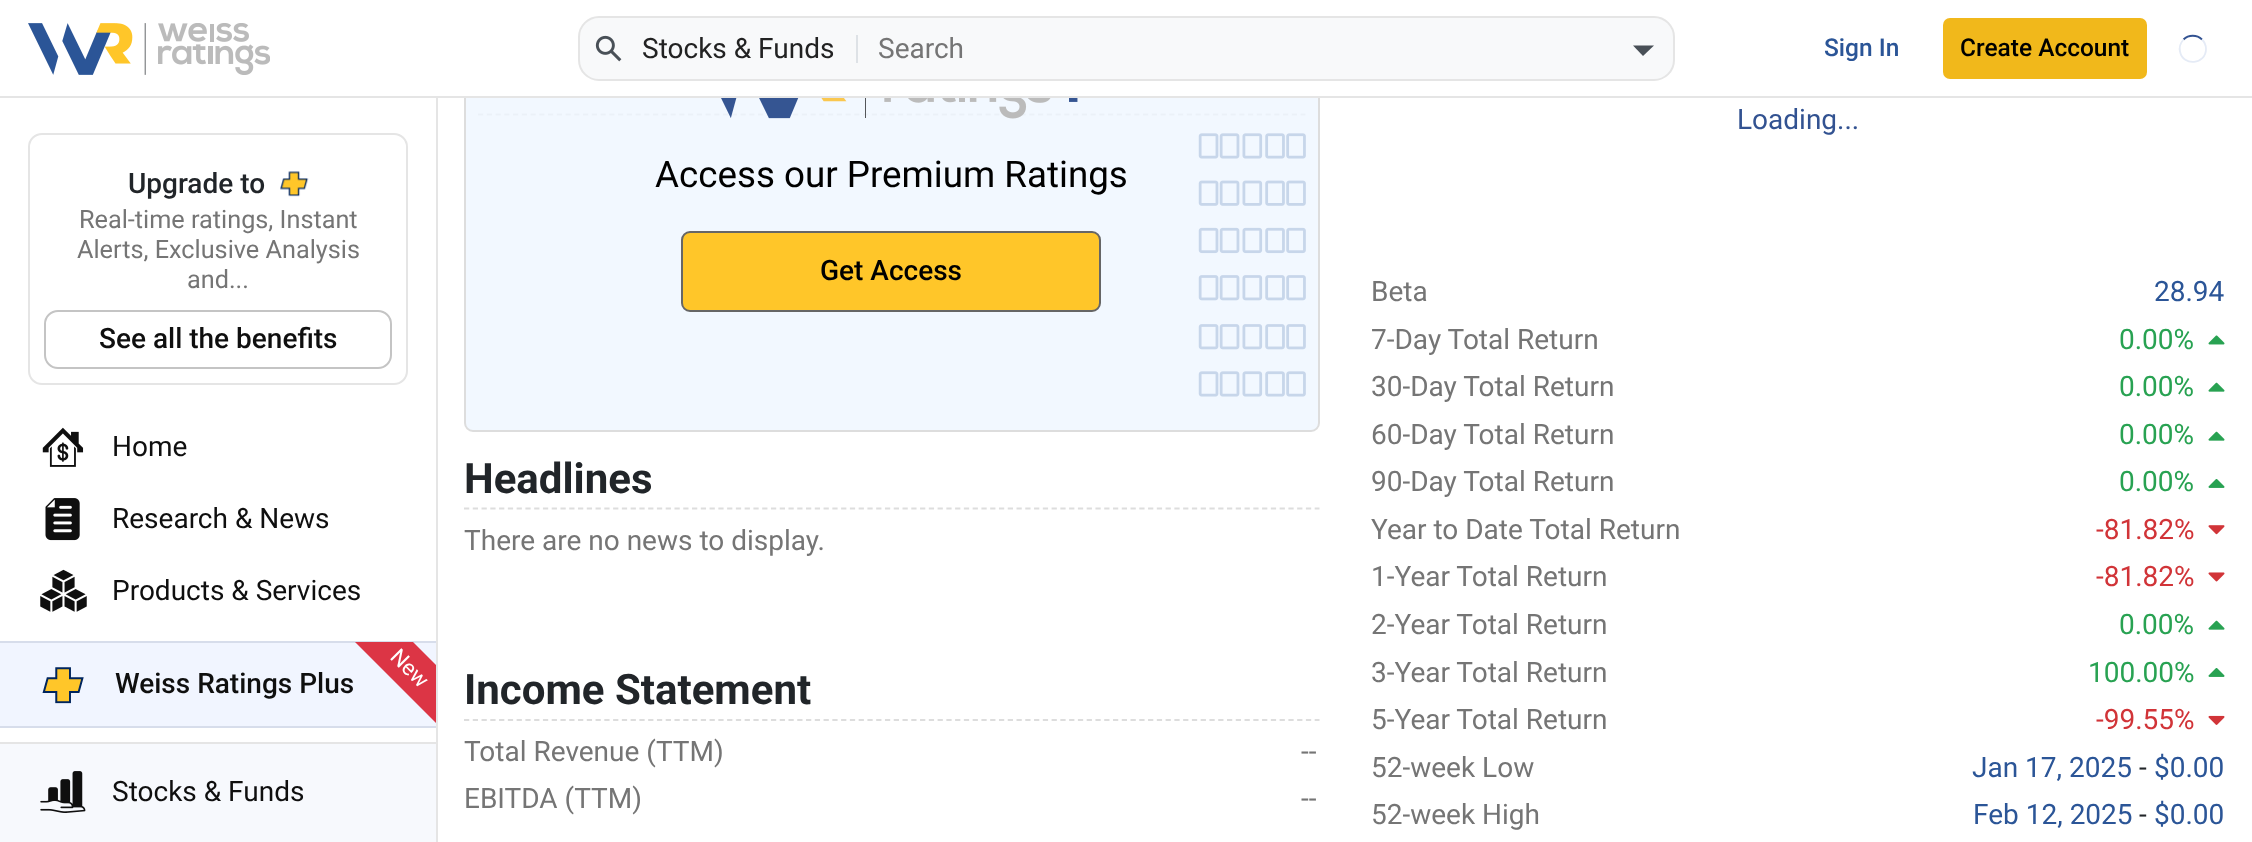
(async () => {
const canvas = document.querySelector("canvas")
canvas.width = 2252
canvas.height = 842
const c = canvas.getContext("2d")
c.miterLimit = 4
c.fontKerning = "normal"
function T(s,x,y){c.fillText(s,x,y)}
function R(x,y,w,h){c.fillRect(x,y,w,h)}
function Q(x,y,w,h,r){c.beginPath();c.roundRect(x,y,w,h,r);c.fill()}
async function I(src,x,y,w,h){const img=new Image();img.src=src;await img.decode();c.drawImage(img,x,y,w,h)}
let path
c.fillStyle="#fff"
R(0,0,2252,842)
path = new Path2D("M478 114.5h827.5")
c.strokeStyle="#ddd"
c.lineWidth=1.8
c.setLineDash([5.25,3.5])
c.stroke(path)
await I("9.png",1198,133,21,26)
await I("9.png",1219,133,21,26)
await I("10.png",1242,133,21,26)
await I("11.png",1265,133,20,26)
await I("11.png",1286,133,20,26)
await I("12.png",1198,180,21,26)
await I("12.png",1219,180,21,26)
await I("13.png",1242,180,21,26)
await I("14.png",1265,180,20,26)
await I("14.png",1286,180,20,26)
await I("15.png",1198,227,21,27)
await I("15.png",1219,227,21,27)
await I("16.png",1242,227,21,27)
await I("17.png",1265,227,20,27)
await I("17.png",1286,227,20,27)
await I("18.png",1198,275,21,26)
await I("18.png",1219,275,21,26)
await I("19.png",1242,275,21,26)
await I("20.png",1265,275,20,26)
await I("20.png",1286,275,20,26)
await I("18.png",1198,324,21,26)
await I("18.png",1219,324,21,26)
await I("19.png",1242,324,21,26)
await I("20.png",1265,324,20,26)
await I("20.png",1286,324,20,26)
await I("9.png",1198,371,21,26)
await I("9.png",1219,371,21,26)
await I("10.png",1242,371,21,26)
await I("11.png",1265,371,20,26)
await I("11.png",1286,371,20,26)
c.fillStyle="#eff6ffcc"
c.beginPath()
c.roundRect(465,-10,854,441,8)
c.fill()
c.lineWidth=2
c.setLineDash([])
c.stroke()
c.fillStyle="#fff"
R(464,0,856,96)
c.fillStyle="#e5e5e5"
R(0,96,2252,2)
await I("1.png",28,23,242,52)
c.fillStyle="#f8f9fa"
c.beginPath()
c.roundRect(579,17,1095,63,20)
c.fill()
c.strokeStyle="#e5e5e5"
c.stroke()
await I("2.png",595,35,27,27)
c.fillStyle="#dee2e6"
R(856,35,2,28)
c.font="28px Roboto"
c.fillStyle="#222"
T("Stocks & Funds",642,58)
c.fillStyle="#757575"
T("Search",878,58)
c.fillStyle="#495057"
path = new Path2D("M1633 45.5l10 10.5l11-10.5z")
c.fill(path)
c.font="500 24.5px Roboto"
c.fillStyle="#2b5597"
T("Sign In",1824,56)
c.fillStyle="#f1b81b"
Q(1943,18,204,61,7)
c.fillStyle="#000"
T("Create Account",1960,56)
path = new Path2D("M2183.5 39.5c5-5 13.5-5 18.5 0")
c.strokeStyle="#325291"
c.lineWidth=1.8
c.stroke(path)
path = new Path2D("M2202 39.5c2.5 2.5 4 6 4 9.5c0 15.5-23 18-26 2.5c-1-4 .5-8.5 3.5-12")
c.strokeStyle="#e5ebf6"
c.stroke(path)
c.fillStyle="#e5e5e5"
R(436,98,2,744)
c.beginPath()
c.roundRect(29,134,378,250,13)
c.strokeStyle="#e5e5e5"
c.lineWidth=2
c.stroke()
c.font="500 28px Roboto"
c.fillStyle="#212529"
T("Upgrade to",128,193)
await I("3.png",280,171,29,26)
c.font="25.25px Roboto"
c.fillStyle="#757575"
T("Real-time ratings, Instant",79,228)
T("Alerts, Exclusive Analysis",77,258)
T("and...",187,288)
c.beginPath()
c.roundRect(45,311,346,57,13)
c.strokeStyle="#c4c4c4"
c.stroke()
c.font="500 28px Roboto"
c.fillStyle="#0f0f0f"
T("See all the benefits",99,348)
await I("4.png",42,427,42,40)
c.font="28px Roboto"
T("Home",112,456)
await I("5.png",45,498,35,43)
T("Research & News",112,528)
await I("6.png",40,569,47,43)
T("Products & Services",112,600)
c.fillStyle="#f1f5ff"
R(0,643,436,83)
c.fillStyle="#d7ddeb"
R(0,641,436,2)
R(0,726,436,2)
await I("7.png",42,667,42,37)
c.font="500 28px Roboto"
c.fillStyle="#0f0f0f"
T("Weiss Ratings Plus",115,693)
c.save()
c.beginPath()
c.rect(0,642,436,84)
c.clip()
c.fillStyle="#dc3545"
path = new Path2D("M368 597l112 112l-29 29l-112-112z")
c.fill(path)
c.restore()
c.font="22px Roboto"
c.fillStyle="#fff"
c.save()
c.translate(389,658)
c.rotate(45 * Math.PI / 180)
c.fillText("New",0,0)
c.restore()
c.fillStyle="#f7f9fd"
R(0,744,436,98)
c.fillStyle="#e5e5e5"
R(0,742,436,2)
await I("8.png",40,771,46,42)
c.font="28px Roboto"
c.fillStyle="#0f0f0f"
T("Stocks & Funds",112,801)
await I("21.png",721,98,357,21)
c.font="36.75px Roboto"
c.fillStyle="#000"
T("Access our Premium Ratings",655,187)
c.fillStyle="#ffc629"
c.beginPath()
c.roundRect(682,232,418,79,8)
c.fill()
c.strokeStyle="#666"
c.stroke()
c.font="500 28px Roboto"
c.fillStyle="#000"
T("Get Access",820,280)
path = new Path2D("M464 508.5h855.5")
c.strokeStyle="#ddd"
c.lineWidth=1.8
c.setLineDash([5.25,3.52])
c.stroke(path)
c.font="bold 42px Roboto"
c.fillStyle="#212529"
T("Headlines",464,493)
c.font="28px Roboto"
c.fillStyle="#757575"
T("There are no news to display.",464,550)
path = new Path2D("M464 720h855.5")
c.stroke(path)
c.font="bold 42px Roboto"
c.fillStyle="#212529"
T("Income Statement",464,704)
c.font="28px Roboto"
c.fillStyle="#757575"
T("Total Revenue (TTM)",464,761)
T("--",1301,761)
T("EBITDA (TTM)",464,808)
T("--",1301,808)
c.fillStyle="#325291"
T("Loading...",1737,129)
c.fillStyle="#757575"
T("Beta",1371,301)
c.fillStyle="#2b5597"
T("28.94",2154,301)
c.fillStyle="#757575"
T("7-Day Total Return",1371,349)
c.fillStyle="#28a252"
T("0.00%",2119,349)
await I("22.png",2208,335,17,10)
c.fillStyle="#757575"
T("30-Day Total Return",1371,396)
c.fillStyle="#28a252"
T("0.00%",2119,396)
await I("23.png",2208,382,17,10)
c.fillStyle="#757575"
T("60-Day Total Return",1371,444)
c.fillStyle="#28a252"
T("0.00%",2119,444)
await I("23.png",2208,431,17,10)
c.fillStyle="#757575"
T("90-Day Total Return",1371,491)
c.fillStyle="#28a252"
T("0.00%",2119,491)
await I("24.png",2208,479,17,9)
c.fillStyle="#757575"
T("Year to Date Total Return",1371,539)
c.fillStyle="#d13438"
T("-81.82%",2096,539)
await I("25.png",2208,525,17,10)
c.fillStyle="#757575"
T("1-Year Total Return",1371,586)
c.fillStyle="#d13438"
T("-81.82%",2096,586)
await I("26.png",2208,572,17,10)
c.fillStyle="#757575"
T("2-Year Total Return",1371,634)
c.fillStyle="#28a252"
T("0.00%",2119,634)
await I("23.png",2208,620,17,10)
c.fillStyle="#757575"
T("3-Year Total Return",1371,682)
c.fillStyle="#28a252"
T("100.00%",2088,682)
await I("24.png",2208,668,17,9)
c.fillStyle="#757575"
T("5-Year Total Return",1371,729)
c.fillStyle="#d13438"
T("-99.55%",2096,729)
await I("27.png",2208,715,17,10)
c.fillStyle="#757575"
T("52-week Low",1371,777)
c.fillStyle="#2b5597"
T("Jan 17, 2025",1972,777)
c.fillStyle="#212529"
T("-",2139,777)
c.fillStyle="#2b5597"
T("$0.00",2154,777)
c.fillStyle="#757575"
T("52-week High",1371,824)
c.fillStyle="#2b5597"
T("Feb 12, 2025",1973,824)
c.fillStyle="#212529"
T("-",2139,824)
c.fillStyle="#2b5597"
T("$0.00",2154,824)
})()
